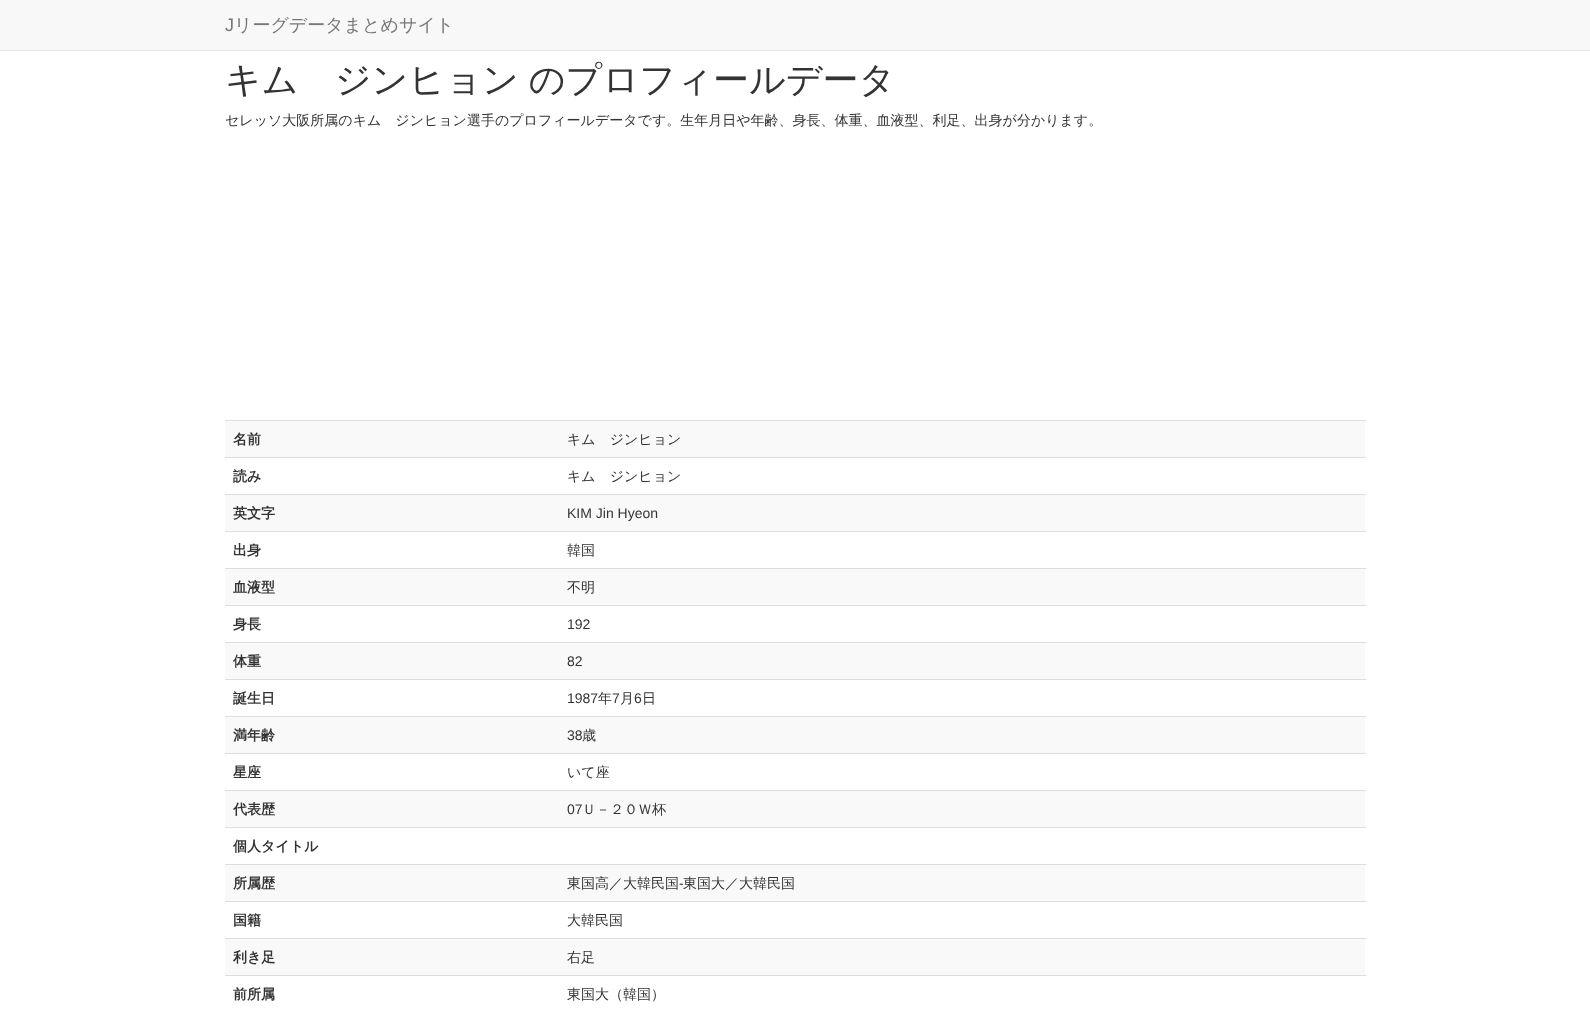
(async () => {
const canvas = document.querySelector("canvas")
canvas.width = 1590
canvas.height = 1019
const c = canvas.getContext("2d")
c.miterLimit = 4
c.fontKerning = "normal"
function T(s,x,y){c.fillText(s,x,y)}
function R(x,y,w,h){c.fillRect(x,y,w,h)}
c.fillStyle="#fff"
R(0,0,1590,1019)
c.fillStyle="#f8f8f8"
R(0,0,1590,50)
c.fillStyle="#e7e7e7"
R(0,50,1590,1)
c.font="18px Liberation Sans"
c.fillStyle="#777"
T("J",225,31)
c.font="500 18px WenQuanYi Zen Hei"
T("リーグデータまとめサイト",234,31)
c.wordSpacing="-1px"
c.font="500 36px WenQuanYi Zen Hei"
c.fillStyle="#333"
T("キム　ジンヒョン のプロフィールデータ",225,92)
c.wordSpacing="0px"
c.font="500 14px WenQuanYi Zen Hei"
T("セレッソ大阪所属のキム　ジンヒョン選手のプロフィールデータです。生年月日や年齢、身長、体重、血液型、利足、出身が分かります。",225,125)
c.fillStyle="#f9f9f9"
R(225,421,1140,36)
c.font="bold 14px WenQuanYi Zen Hei"
c.fillStyle="#333"
T("名前",233,444)
c.fillStyle="#ddd"
R(225,420,1141,1)
c.font="500 14px WenQuanYi Zen Hei"
c.fillStyle="#333"
T("キム　ジンヒョン",567,444)
c.font="bold 14px WenQuanYi Zen Hei"
T("読み",233,481)
c.fillStyle="#ddd"
R(225,457,1141,1)
c.font="500 14px WenQuanYi Zen Hei"
c.fillStyle="#333"
T("キム　ジンヒョン",567,481)
c.fillStyle="#f9f9f9"
R(225,495,1140,36)
c.font="bold 14px WenQuanYi Zen Hei"
c.fillStyle="#333"
T("英文字",233,518)
c.fillStyle="#ddd"
R(225,494,1141,1)
c.font="14px Liberation Sans"
c.fillStyle="#333"
T("KIM Jin Hyeon",567,518)
c.font="bold 14px WenQuanYi Zen Hei"
T("出身",233,555)
c.fillStyle="#ddd"
R(225,531,1141,1)
c.font="500 14px WenQuanYi Zen Hei"
c.fillStyle="#333"
T("韓国",567,555)
c.fillStyle="#f9f9f9"
R(225,569,1140,36)
c.font="bold 14px WenQuanYi Zen Hei"
c.fillStyle="#333"
T("血液型",233,592)
c.fillStyle="#ddd"
R(225,568,1141,1)
c.font="500 14px WenQuanYi Zen Hei"
c.fillStyle="#333"
T("不明",567,592)
c.font="bold 14px WenQuanYi Zen Hei"
T("身長",233,629)
c.fillStyle="#ddd"
R(225,605,1141,1)
c.font="14px Liberation Sans"
c.fillStyle="#333"
T("192",567,629)
c.fillStyle="#f9f9f9"
R(225,643,1140,36)
c.font="bold 14px WenQuanYi Zen Hei"
c.fillStyle="#333"
T("体重",233,666)
c.fillStyle="#ddd"
R(225,642,1141,1)
c.font="14px Liberation Sans"
c.fillStyle="#333"
T("82",567,666)
c.font="bold 14px WenQuanYi Zen Hei"
T("誕生日",233,703)
c.fillStyle="#ddd"
R(225,679,1141,1)
c.font="14px Liberation Sans"
c.fillStyle="#333"
T("1987",567,703)
c.font="500 14px WenQuanYi Zen Hei"
T("年",598,703)
c.font="14px Liberation Sans"
T("7",612,703)
c.font="500 14px WenQuanYi Zen Hei"
T("月",620,703)
c.font="14px Liberation Sans"
T("6",634,703)
c.font="500 14px WenQuanYi Zen Hei"
T("日",642,703)
c.fillStyle="#f9f9f9"
R(225,717,1140,36)
c.font="bold 14px WenQuanYi Zen Hei"
c.fillStyle="#333"
T("満年齢",233,740)
c.fillStyle="#ddd"
R(225,716,1141,1)
c.font="14px Liberation Sans"
c.fillStyle="#333"
T("38",567,740)
c.font="500 14px WenQuanYi Zen Hei"
T("歳",582,740)
c.font="bold 14px WenQuanYi Zen Hei"
T("星座",233,777)
c.fillStyle="#ddd"
R(225,753,1141,1)
c.font="500 14px WenQuanYi Zen Hei"
c.fillStyle="#333"
T("いて座",567,777)
c.fillStyle="#f9f9f9"
R(225,791,1140,36)
c.font="bold 14px WenQuanYi Zen Hei"
c.fillStyle="#333"
T("代表歴",233,814)
c.fillStyle="#ddd"
R(225,790,1141,1)
c.font="14px Liberation Sans"
c.fillStyle="#333"
T("07",567,814)
c.font="500 14px WenQuanYi Zen Hei"
T("Ｕ－２０Ｗ杯",582,814)
c.fillStyle="#ddd"
R(225,827,1141,1)
c.font="bold 14px WenQuanYi Zen Hei"
c.fillStyle="#333"
T("個人タイトル",233,851)
c.fillStyle="#f9f9f9"
R(225,865,1140,36)
c.fillStyle="#333"
T("所属歴",233,888)
c.fillStyle="#ddd"
R(225,864,1141,1)
c.font="500 14px WenQuanYi Zen Hei"
c.fillStyle="#333"
T("東国高／大韓民国",567,888)
c.font="14px Liberation Sans"
T("-",679,888)
c.font="500 14px WenQuanYi Zen Hei"
T("東国大／大韓民国",683,888)
c.font="bold 14px WenQuanYi Zen Hei"
T("国籍",233,925)
c.fillStyle="#ddd"
R(225,901,1141,1)
c.font="500 14px WenQuanYi Zen Hei"
c.fillStyle="#333"
T("大韓民国",567,925)
c.fillStyle="#f9f9f9"
R(225,939,1140,36)
c.font="bold 14px WenQuanYi Zen Hei"
c.fillStyle="#333"
T("利き足",233,962)
c.fillStyle="#ddd"
R(225,938,1141,1)
c.font="500 14px WenQuanYi Zen Hei"
c.fillStyle="#333"
T("右足",567,962)
c.font="bold 14px WenQuanYi Zen Hei"
T("前所属",233,999)
c.fillStyle="#ddd"
R(225,975,1141,1)
c.font="500 14px WenQuanYi Zen Hei"
c.fillStyle="#333"
T("東国大（韓国）",567,999)
})()
